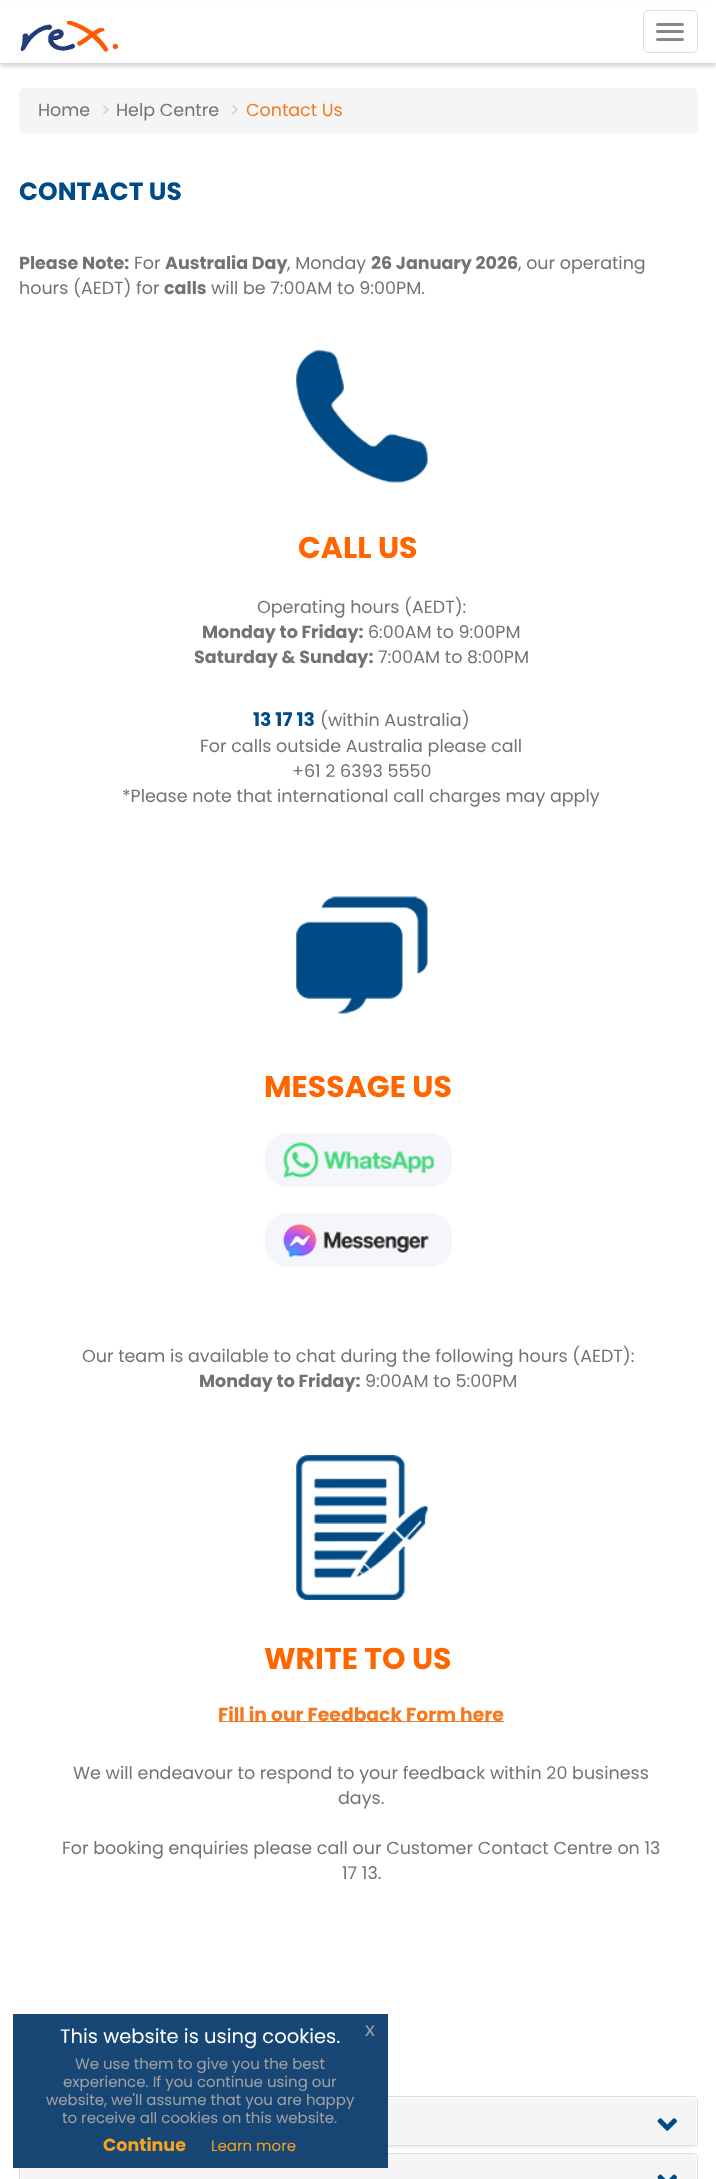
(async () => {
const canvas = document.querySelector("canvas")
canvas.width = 716
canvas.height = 2179
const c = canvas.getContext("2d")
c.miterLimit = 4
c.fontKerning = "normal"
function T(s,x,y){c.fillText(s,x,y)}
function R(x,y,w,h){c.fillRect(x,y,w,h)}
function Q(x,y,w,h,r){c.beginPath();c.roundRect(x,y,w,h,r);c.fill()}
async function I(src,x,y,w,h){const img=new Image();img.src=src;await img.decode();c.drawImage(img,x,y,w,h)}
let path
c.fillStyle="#fff"
R(0,0,716,2179)
c.fillStyle="#d1d1d1"
c.filter="blur(2px)"
c.beginPath()
c.rect(0,4,716,62)
c.fill()
c.filter="none"
c.fillStyle="#fff"
R(0,1,716,62)
await I("1.png",20,21,98,31)
c.beginPath()
c.roundRect(643.5,10.5,54,42,4.5)
c.strokeStyle="#ddd"
c.stroke()
c.fillStyle="#888"
Q(656,23,28,3,1.5)
Q(656,30,28,3,1.5)
Q(656,38,28,3,1.5)
c.fillStyle="#f5f5f5"
Q(19,88,679,45,5)
c.font="17.5px Poppins"
c.fillStyle="#747373"
T("Home",38,116)
c.fillStyle="#ccc"
T(">",101,116)
c.fillStyle="#747373"
T("Help Centre",116,116)
c.fillStyle="#ccc"
T(">",230,116)
c.fillStyle="#f47920"
T("Contact Us",246,116)
c.font="bold 25px Poppins"
c.fillStyle="#004b85"
T("CONTACT US",19,200)
c.font="bold 17.5px Poppins"
c.fillStyle="#747373"
T("Please Note:",19,269)
c.font="17.5px Poppins"
T("For",134,269)
c.font="bold 17.5px Poppins"
T("Australia Day",165,269)
c.font="17.5px Poppins"
T(", Monday",287,269)
c.font="bold 17.5px Poppins"
T("26 January 2026",371,269)
c.font="17.5px Poppins"
T(", our operating",518,269)
T("hours (AEDT) for",19,294)
c.font="bold 17.5px Poppins"
T("calls",164,294)
c.font="17.5px Poppins"
T("will be 7:00AM to 9:00PM.",211,294)
await I("2.png",296,349,132,134)
c.font="bold 30px Poppins"
c.fillStyle="#f60"
T("CALL US",298,558)
c.font="17.5px Poppins"
c.fillStyle="#747373"
T("Operating hours (AEDT):",257,613)
c.font="bold 17.5px Poppins"
T("Monday to Friday:",202,638)
c.font="17.5px Poppins"
T("6:00AM to 9:00PM",368,638)
c.font="bold 17.5px Poppins"
T("Saturday & Sunday:",194,663)
c.font="17.5px Poppins"
T("7:00AM to 8:00PM",378,663)
c.font="bold 18.75px Poppins"
c.fillStyle="#004b85"
T("13 17 13",253,726)
c.font="17.5px Poppins"
c.fillStyle="#747373"
T("(within Australia)",320,726)
T("For calls outside Australia please call",200,752)
T("+61 2 6393 5550",292,777)
T("*Please note that international call charges may apply",122,802)
await I("3.png",296,896,132,118)
c.font="bold 30px Poppins"
c.fillStyle="#f60"
T("MESSAGE US",264,1097)
await I("4.png",265,1133,187,54)
await I("5.png",265,1213,187,54)
c.font="17.5px Poppins"
c.fillStyle="#747373"
T("Our team is available to chat during the following hours (AEDT):",82,1362)
c.font="bold 17.5px Poppins"
T("Monday to Friday:",199,1387)
c.font="17.5px Poppins"
T("9:00AM to 5:00PM",365,1387)
await I("6.png",296,1455,132,145)
c.font="bold 30px Poppins"
c.fillStyle="#f60"
T("WRITE TO US",264,1669)
c.fillStyle="#f47920"
R(219,1721,285,1)
c.font="bold 18.75px Poppins"
T("Fill in our Feedback Form here",218,1721)
c.font="17.5px Poppins"
c.fillStyle="#747373"
T("We will endeavour to respond to your feedback within 20 business",73,1779)
T("days.",338,1804)
T("For booking enquiries please call our Customer Contact Centre on 13",62,1854)
T("17 13.",342,1879)
c.fillStyle="#0000000d"
c.filter="blur(0.5px)"
c.beginPath()
c.roundRect(19,2098,679,50,5)
c.fill()
c.filter="none"
c.fillStyle="#fff"
c.beginPath()
c.roundRect(19.5,2096.5,678,49,4.5)
c.fill()
c.stroke()
c.fillStyle="#f5f5f5"
c.beginPath()
c.roundRect(20,2098,676,47,[4,4,0,0])
c.fill()
await I("7.png",657,2118,20,13)
c.beginPath()
c.roundRect(19.5,2153.5,678,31,4.5)
c.stroke()
path = new Path2D("M24 2154h668c2 0 4 2 4 4v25h-676v-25c0-2 2-4 4-4z")
c.fill(path)
await I("8.png",657,2174,20,5)
c.fillStyle="#003366e6"
R(13,2014,375,154)
c.font="19.5px Poppins"
c.fillStyle="#fff"
T("This website is using cookies.",60,2043)
c.font="20px Liberation Sans"
c.fillStyle="#a2a2a2"
T("x",365,2036)
c.font="15px Poppins"
T("We use them to give you the best",75,2069)
T("experience. If you continue using our",63,2087)
T("website, we'll assume that you are happy",46,2105)
T("to receive all cookies on this website.",62,2123)
c.font="bold 17.5px Poppins"
c.fillStyle="#f6a21d"
T("Continue",103,2151)
c.font="15px Poppins"
T("Learn more",211,2151)
})()
